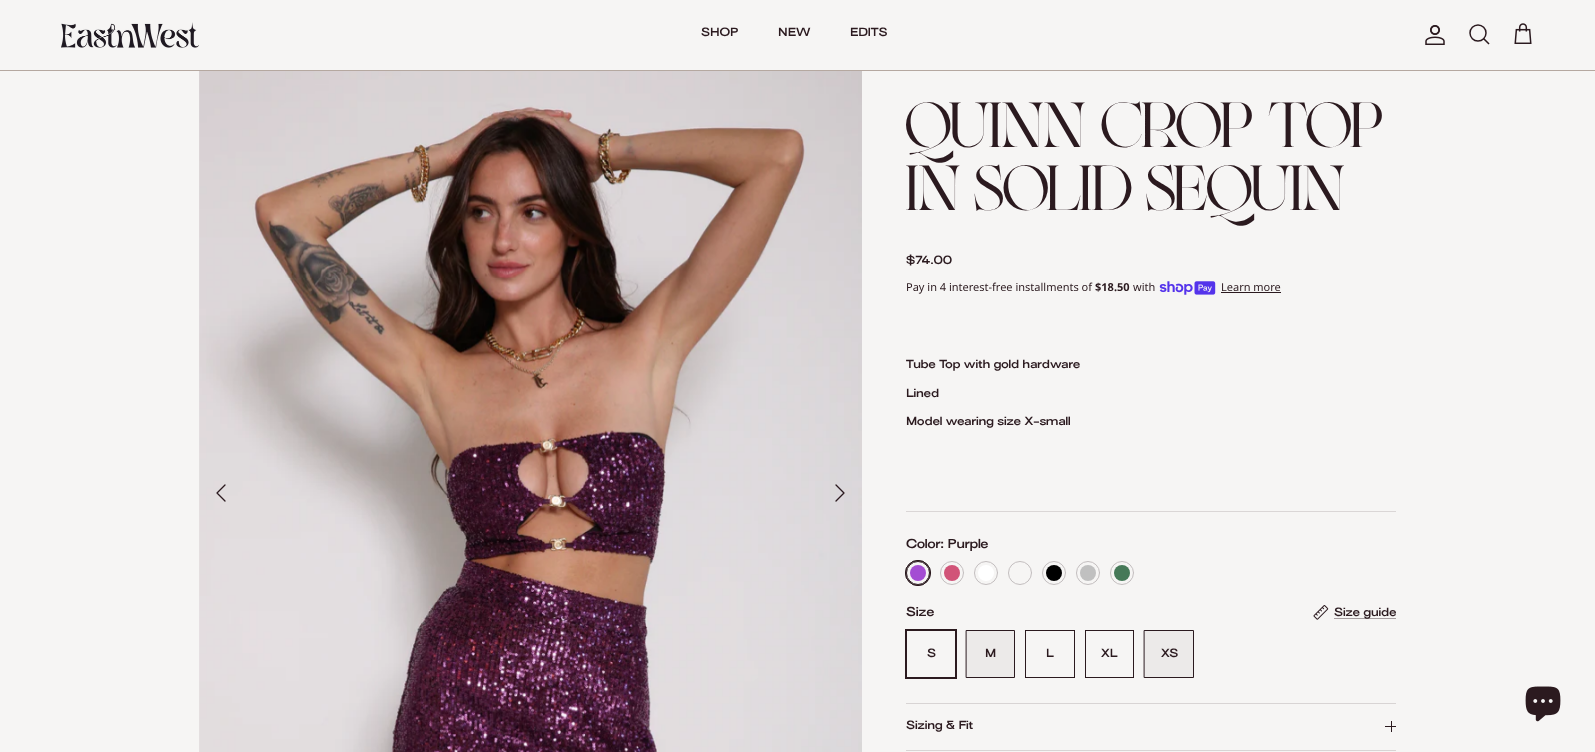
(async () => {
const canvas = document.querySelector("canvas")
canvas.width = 1595
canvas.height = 752
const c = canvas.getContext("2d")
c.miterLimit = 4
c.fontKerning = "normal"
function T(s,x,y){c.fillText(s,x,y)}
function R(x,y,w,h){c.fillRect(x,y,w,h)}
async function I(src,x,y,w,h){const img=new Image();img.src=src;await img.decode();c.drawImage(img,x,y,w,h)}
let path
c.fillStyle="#f6f5f4"
R(0,0,1595,752)
c.fillStyle="#b5a8a0"
R(0,70,1595,1)
await I("1.png",61,22,138,26)
c.font="600 11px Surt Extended"
c.fillStyle="#2b1a1f"
T("SHOP",701,36)
T("NEW",778,36)
T("EDITS",850,36)
await I("2.png",1425,25,20,20)
c.beginPath()
c.arc(1478,33,8,0,7)
c.strokeStyle="#2b1a1f"
c.lineWidth=1.5
c.stroke()
path = new Path2D("M1484 39l4.5 4.5")
c.lineCap="square"
c.stroke(path)
await I("3.png",1514,23,18,21)
await I("4.png",199,71,663,681)
path = new Path2D("M225 501l-8-8l8-8")
c.lineWidth=1.3
c.lineCap="round"
c.lineJoin="round"
c.stroke(path)
path = new Path2D("M836 501l8-8l-8-8")
c.stroke(path)
c.font="52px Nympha"
T("QUINN CROP TOP",906,147)
T("IN SOLID SEQUIN",906,210)
c.font="600 11px Surt Extended"
T("$74.00",906,264)
c.font="11px Noto Sans"
T("Pay in 4 interest-free installments of",906,291)
c.font="bold 11px Noto Sans"
T("$18.50",1095,291)
c.font="11px Noto Sans"
T("with",1133,291)
await I("5.png",1159,281,57,14)
T("Learn more",1221,291)
R(1221,292,60,1)
c.font="600 11px Surt Extended"
T("Tube Top with gold hardware",906,368)
T("Lined",906,397)
T("Model wearing size X-small",906,425)
c.fillStyle="#dad6d6"
R(906,511,490,1)
c.font="600 12px Surt Extended"
c.fillStyle="#2b1a1f"
T("Color: Purple",906,548)
c.beginPath()
c.arc(918,573,12.5,0,7)
c.lineWidth=1
c.stroke()
c.fillStyle="#a44cd3"
c.beginPath()
c.arc(918,573,8,0,7)
c.fill()
c.beginPath()
c.arc(918,573,12.5,0,7)
c.stroke()
c.beginPath()
c.arc(918,573,11.5,0,7)
c.stroke()
c.fillStyle="#d15478"
c.beginPath()
c.arc(952,573,8,0,7)
c.fill()
c.beginPath()
c.arc(952,573,11.5,0,7)
c.strokeStyle="#c3bebf"
c.stroke()
c.fillStyle="#fff"
c.beginPath()
c.arc(986,573,8,0,7)
c.fill()
c.beginPath()
c.arc(986,573,11.5,0,7)
c.stroke()
c.beginPath()
c.arc(1020,573,11.5,0,7)
c.stroke()
c.fillStyle="#000"
c.beginPath()
c.arc(1054,573,8,0,7)
c.fill()
c.beginPath()
c.arc(1054,573,11.5,0,7)
c.stroke()
c.fillStyle="#c0c0c0"
c.beginPath()
c.arc(1088,573,8,0,7)
c.fill()
c.beginPath()
c.arc(1088,573,11.5,0,7)
c.stroke()
c.fillStyle="#467958"
c.beginPath()
c.arc(1122,573,8,0,7)
c.fill()
c.beginPath()
c.arc(1122,573,11.5,0,7)
c.stroke()
c.fillStyle="#2b1a1f"
T("Size",906,616)
await I("6.png",1313,605,16,15)
c.fillStyle="#a59d9f"
R(1334,618,62,1)
c.font="600 11px Surt Extended"
c.fillStyle="#2b1a1f"
T("Size guide",1334,616)
c.strokeStyle="#2b1a1f"
c.lineJoin="miter"
c.strokeRect(905.5,629.5,51,49)
c.strokeRect(906.5,630.5,49,47)
T("S",927,657)
c.fillStyle="#eceae9"
c.beginPath()
c.rect(966.5,630.5,48,47)
c.fill()
c.stroke()
c.fillStyle="#2b1a1f"
T("M",985,657)
c.strokeRect(1025.5,630.5,49,47)
T("L",1046,657)
c.strokeRect(1085.5,630.5,48,47)
T("XL",1101,657)
c.fillStyle="#eceae9"
c.beginPath()
c.rect(1144.5,630.5,49,47)
c.fill()
c.stroke()
c.fillStyle="#2b1a1f"
T("XS",1161,657)
c.fillStyle="#d8d4d4"
R(906,703,490,1)
R(906,750,490,1)
c.fillStyle="#2b1a1f"
T("Sizing & Fit",906,729)
R(1391,721,1,11)
R(1385,726,11,1)
await I("7.png",1525,686,36,36)
})()
